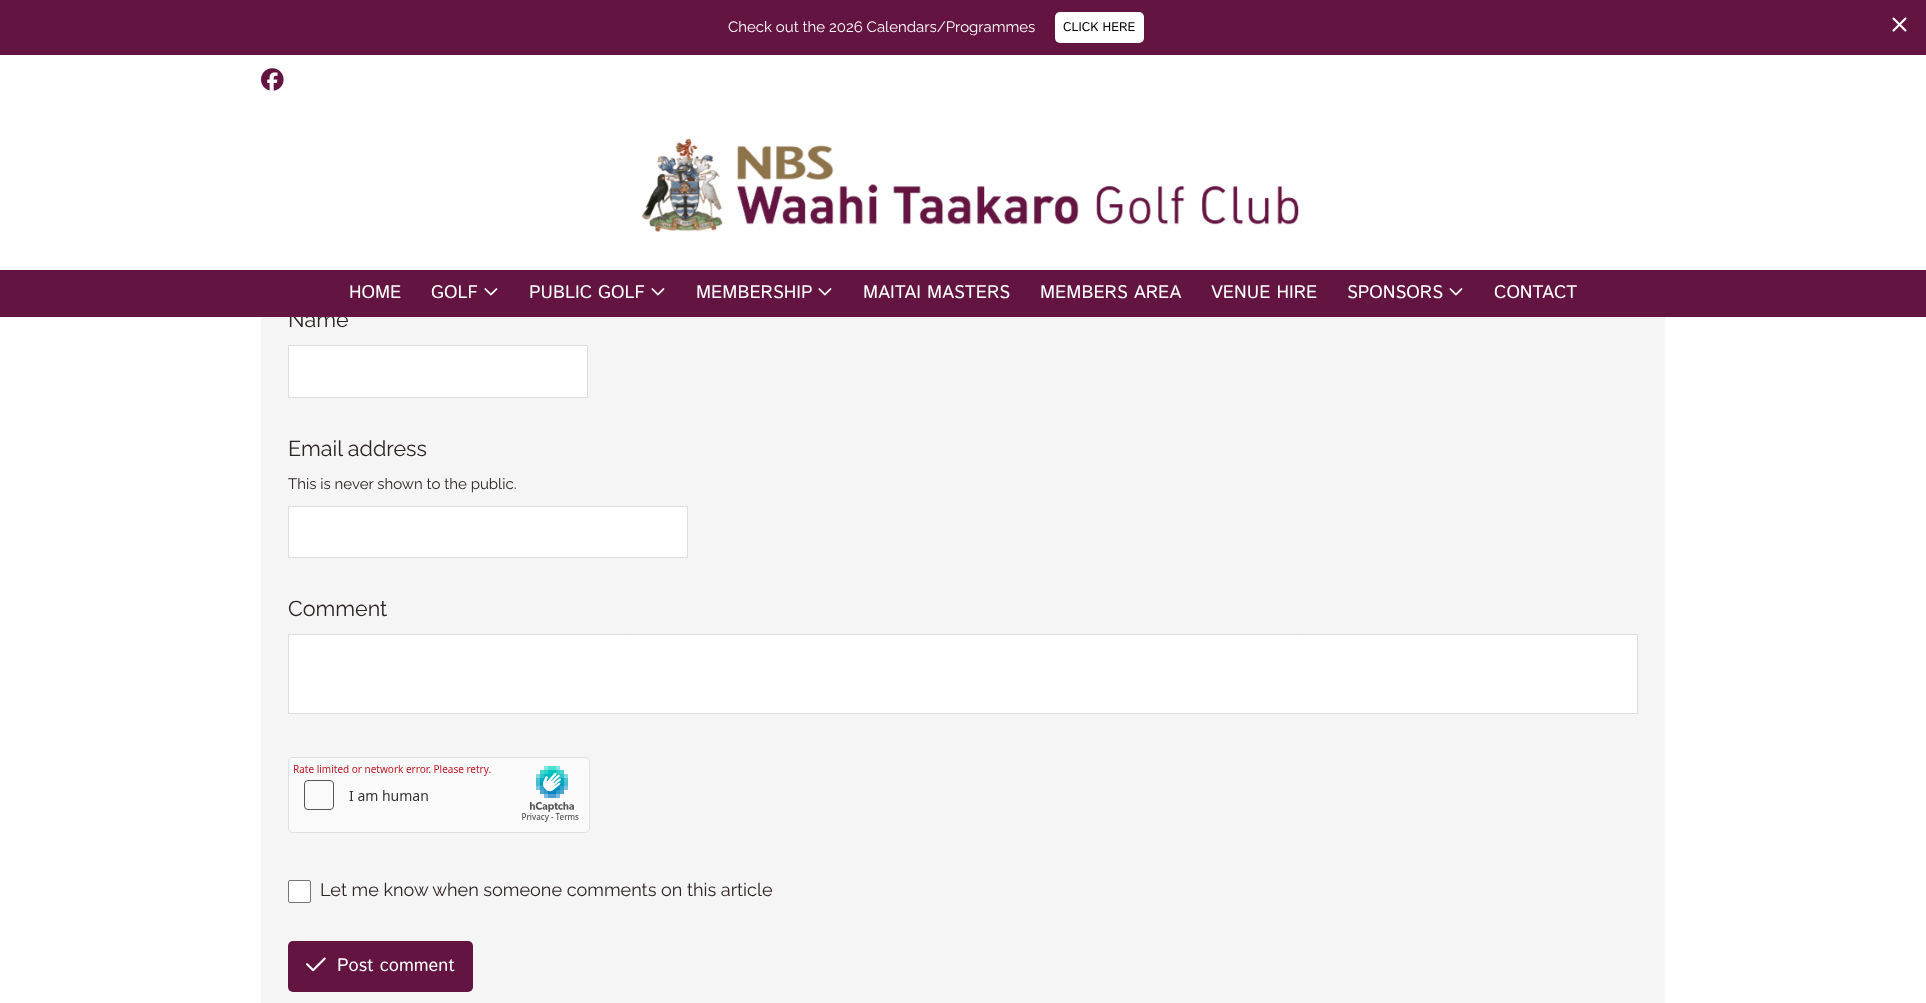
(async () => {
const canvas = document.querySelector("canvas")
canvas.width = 1926
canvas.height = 1003
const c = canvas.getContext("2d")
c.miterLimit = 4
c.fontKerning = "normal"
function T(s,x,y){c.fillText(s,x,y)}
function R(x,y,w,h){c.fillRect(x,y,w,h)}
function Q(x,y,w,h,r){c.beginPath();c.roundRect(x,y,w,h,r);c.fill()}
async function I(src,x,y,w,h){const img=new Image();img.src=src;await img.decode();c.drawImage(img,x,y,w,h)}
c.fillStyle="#fff"
R(0,0,1926,1003)
c.fillStyle="#631441"
R(0,0,1926,55)
c.font="100 15px Raleway"
c.fillStyle="#fff"
T("Check out the 2026 Calendars/Programmes",728,32)
Q(1055,12,89,31,5)
c.font="12.5px Istok Web"
c.fillStyle="#000"
T("CLICK HERE",1063,31)
await I("1.png",1892,17,15,15)
await I("2.png",261,68,23,23)
await I("3.png",642,138,657,94)
c.fillStyle="#f5f5f5"
R(261,317,1404,686)
c.font="100 21.5px Raleway"
c.fillStyle="#2c2422"
T("Name",288,327)
c.fillStyle="#631441"
R(0,270,1926,47)
c.font="18.1px Istok Web"
c.fillStyle="#fff"
T("HOME",349,298)
T("GOLF",431,298)
await I("4.png",484,288,14,8)
T("PUBLIC GOLF",529,298)
await I("4.png",651,288,14,8)
T("MEMBERSHIP",696,298)
await I("4.png",818,288,14,8)
T("MAITAI MASTERS",863,298)
T("MEMBERS AREA",1040,298)
T("VENUE HIRE",1211,298)
T("SPONSORS",1347,298)
await I("4.png",1449,288,14,8)
T("CONTACT",1494,298)
c.beginPath()
c.rect(288.5,345.5,299,52)
c.fill()
c.strokeStyle="#ddd"
c.stroke()
c.font="100 21.5px Raleway"
c.fillStyle="#2c2422"
T("Email address",288,456)
c.font="100 15px Raleway"
T("This is never shown to the public.",288,489)
c.fillStyle="#fff"
c.beginPath()
c.rect(288.5,506.5,399,51)
c.fill()
c.stroke()
c.font="100 21.5px Raleway"
c.fillStyle="#2c2422"
T("Comment",288,616)
c.fillStyle="#fff"
c.beginPath()
c.rect(288.5,634.5,1349,79)
c.fill()
c.stroke()
await I("5.png",288,757,302,76)
c.beginPath()
c.roundRect(288.5,880.5,22,22,1.5)
c.fill()
c.strokeStyle="#767676"
c.stroke()
c.font="100 18.1px Raleway"
c.fillStyle="#2c2422"
T("Let me know when someone comments on this article",320,896)
c.fillStyle="#631441"
Q(288,941,185,51,5)
await I("6.png",306,957,20,15)
c.font="18.1px Istok Web"
c.fillStyle="#fff"
T("Post comment",337,971)
})()
